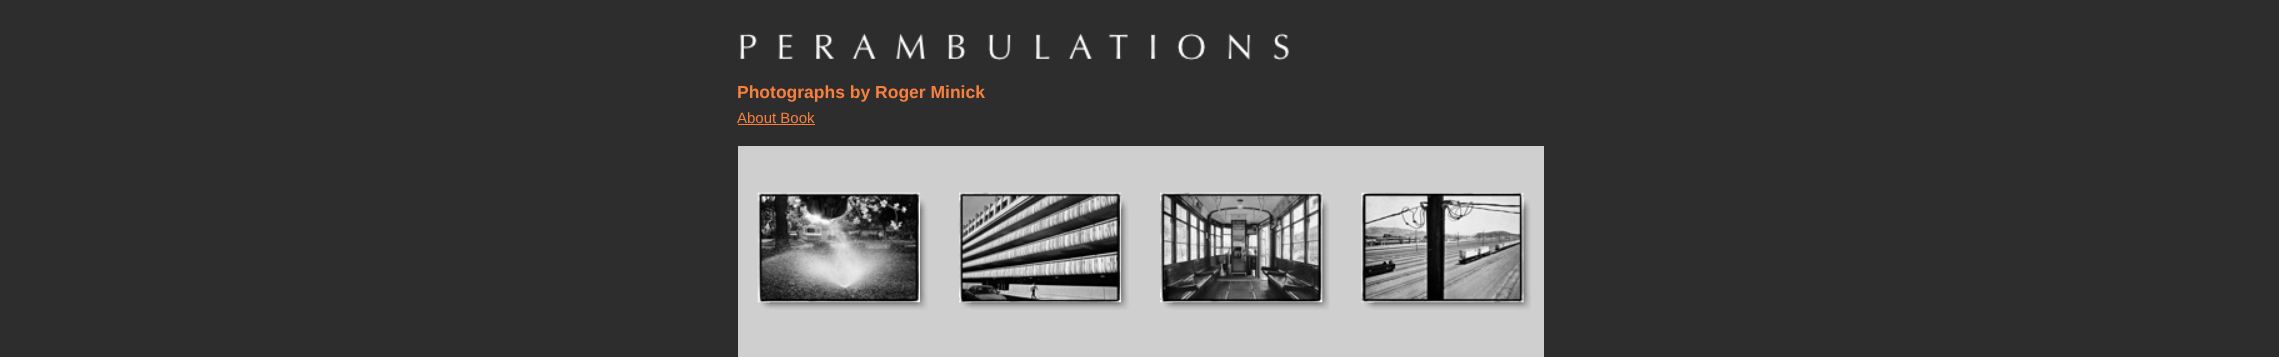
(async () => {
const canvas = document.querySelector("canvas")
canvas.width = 2279
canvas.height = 357
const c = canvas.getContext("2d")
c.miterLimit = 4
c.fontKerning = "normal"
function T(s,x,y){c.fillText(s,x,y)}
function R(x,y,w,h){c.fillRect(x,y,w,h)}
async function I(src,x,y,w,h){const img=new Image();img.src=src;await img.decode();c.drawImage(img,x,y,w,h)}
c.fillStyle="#2d2d2d"
R(0,0,2279,357)
await I("1.png",739,33,550,28)
c.font="bold 17.5px Liberation Sans"
c.fillStyle="#f77f3f"
T("Photographs by Roger Minick",737,98)
c.font="15px Liberation Sans"
T("About Book",737,123)
R(738,124,77,1)
c.fillStyle="#cfcfcf"
R(738,146,806,202)
await I("2.png",770,208,158,102)
await I("5.png",760,302,10,7)
await I("3.png",757,192,163,111)
await I("4.png",920,199,7,10)
await I("6.png",971,208,158,102)
await I("8.png",1121,199,7,10)
await I("9.png",961,302,11,7)
await I("7.png",959,192,163,111)
await I("10.png",1172,208,158,102)
await I("12.png",1322,199,7,10)
await I("13.png",1163,302,10,7)
await I("11.png",1160,192,163,111)
await I("14.png",1373,208,158,102)
await I("16.png",1523,199,7,10)
await I("17.png",1364,302,10,7)
await I("15.png",1361,192,163,111)
R(738,348,806,9)
})()
